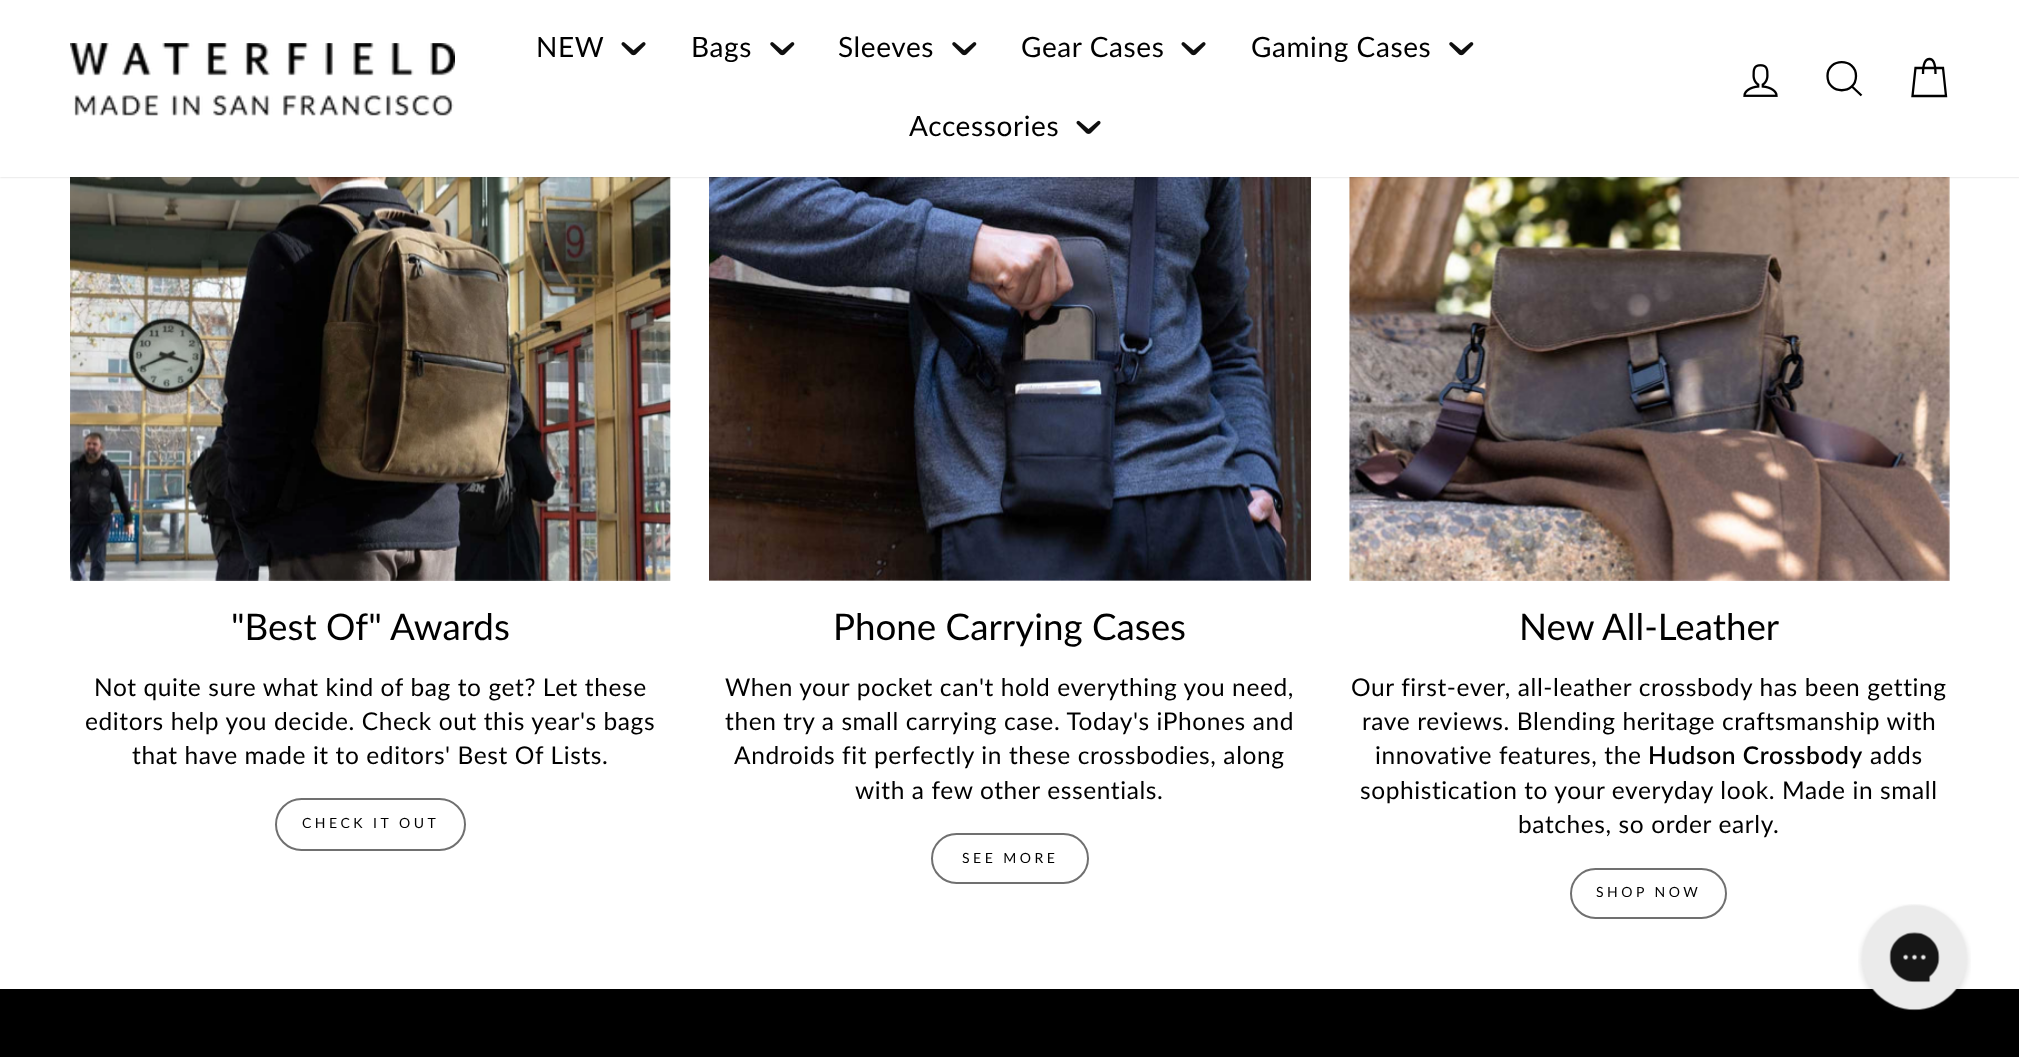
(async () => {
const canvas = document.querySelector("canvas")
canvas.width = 2019
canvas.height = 1057
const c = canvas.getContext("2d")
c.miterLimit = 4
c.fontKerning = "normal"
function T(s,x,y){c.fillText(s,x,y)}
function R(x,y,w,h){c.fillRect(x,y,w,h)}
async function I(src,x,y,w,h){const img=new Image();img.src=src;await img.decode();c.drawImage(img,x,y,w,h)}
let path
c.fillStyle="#fff"
R(0,0,2019,1057)
await I("6.png",70,177,601,404)
await I("7.png",709,177,602,404)
await I("8.png",1349,177,601,404)
c.fillStyle="#00000033"
c.filter="blur(1px)"
c.beginPath()
c.rect(0,0,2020,177)
c.fill()
c.filter="none"
c.fillStyle="#fff"
R(0,0,2019,177)
await I("1.png",70,43,385,73)
c.letterSpacing="0.6px"
c.font="28px Lato"
c.fillStyle="#000"
T("NEW",536,57)
await I("2.png",621,42,25,14)
T("Bags",691,57)
await I("3.png",770,42,25,14)
T("Sleeves",838,57)
await I("3.png",952,42,25,14)
T("Gear Cases",1021,57)
await I("2.png",1181,42,25,14)
T("Gaming Cases",1251,57)
await I("3.png",1449,42,25,14)
T("Accessories",909,136)
await I("4.png",1076,120,25,14)
await I("5.png",1743,64,35,33)
path = new Path2D("M1856 76c0 19-28.5 19-28.5 0c0-18.5 28.5-18.5 28.5 0zm5.5 19.5l-9.5-9")
c.strokeStyle="#000"
c.lineWidth=2.3
c.stroke(path)
path = new Path2D("M1923 74c0-12 3-15 6.5-15c3 0 6 3 6 15m-20-6h27.5l3 28h-33.5z")
c.stroke(path)
c.letterSpacing="0px"
c.font="36.75px Lato"
T("\"Best Of\" Awards",231,640)
c.letterSpacing="0.6px"
c.font="24.5px Lato"
T("Not quite sure what kind of bag to get? Let these",94,696)
T("editors help you decide. Check out this year's bags",85,730)
T("that have made it to editors' Best Of Lists.",132,764)
c.beginPath()
c.roundRect(276,799,189,51,25.5)
c.strokeStyle="#707070"
c.lineWidth=2
c.stroke()
c.letterSpacing="3.5px"
c.font="14px Lato"
T("CHECK IT OUT",302,828)
c.letterSpacing="0px"
c.font="36.75px Lato"
T("Phone Carrying Cases",833,640)
c.letterSpacing="0.6px"
c.font="24.5px Lato"
T("When your pocket can't hold everything you need,",725,696)
T("then try a small carrying case. Today's iPhones and",725,730)
T("Androids fit perfectly in these crossbodies, along",734,764)
T("with a few other essentials.",855,799)
c.beginPath()
c.roundRect(932,834,156,49,24.5)
c.stroke()
c.letterSpacing="3.5px"
c.font="14px Lato"
T("SEE MORE",962,863)
c.letterSpacing="0px"
c.font="36.75px Lato"
T("New All-Leather",1519,640)
c.letterSpacing="0.6px"
c.font="24.5px Lato"
T("Our first-ever, all-leather crossbody has been getting",1351,696)
T("rave reviews. Blending heritage craftsmanship with",1362,730)
T("innovative features, the",1375,764)
c.font="600 24.5px Lato"
T("Hudson Crossbody",1648,764)
c.font="24.5px Lato"
T("adds",1870,764)
T("sophistication to your everyday look. Made in small",1360,799)
T("batches, so order early.",1518,833)
c.beginPath()
c.roundRect(1571,869,155,49,24.5)
c.stroke()
c.letterSpacing="3.5px"
c.font="14px Lato"
T("SHOP NOW",1596,897)
R(0,989,2019,68)
await I("9.png",1858,904,113,107)
})()
